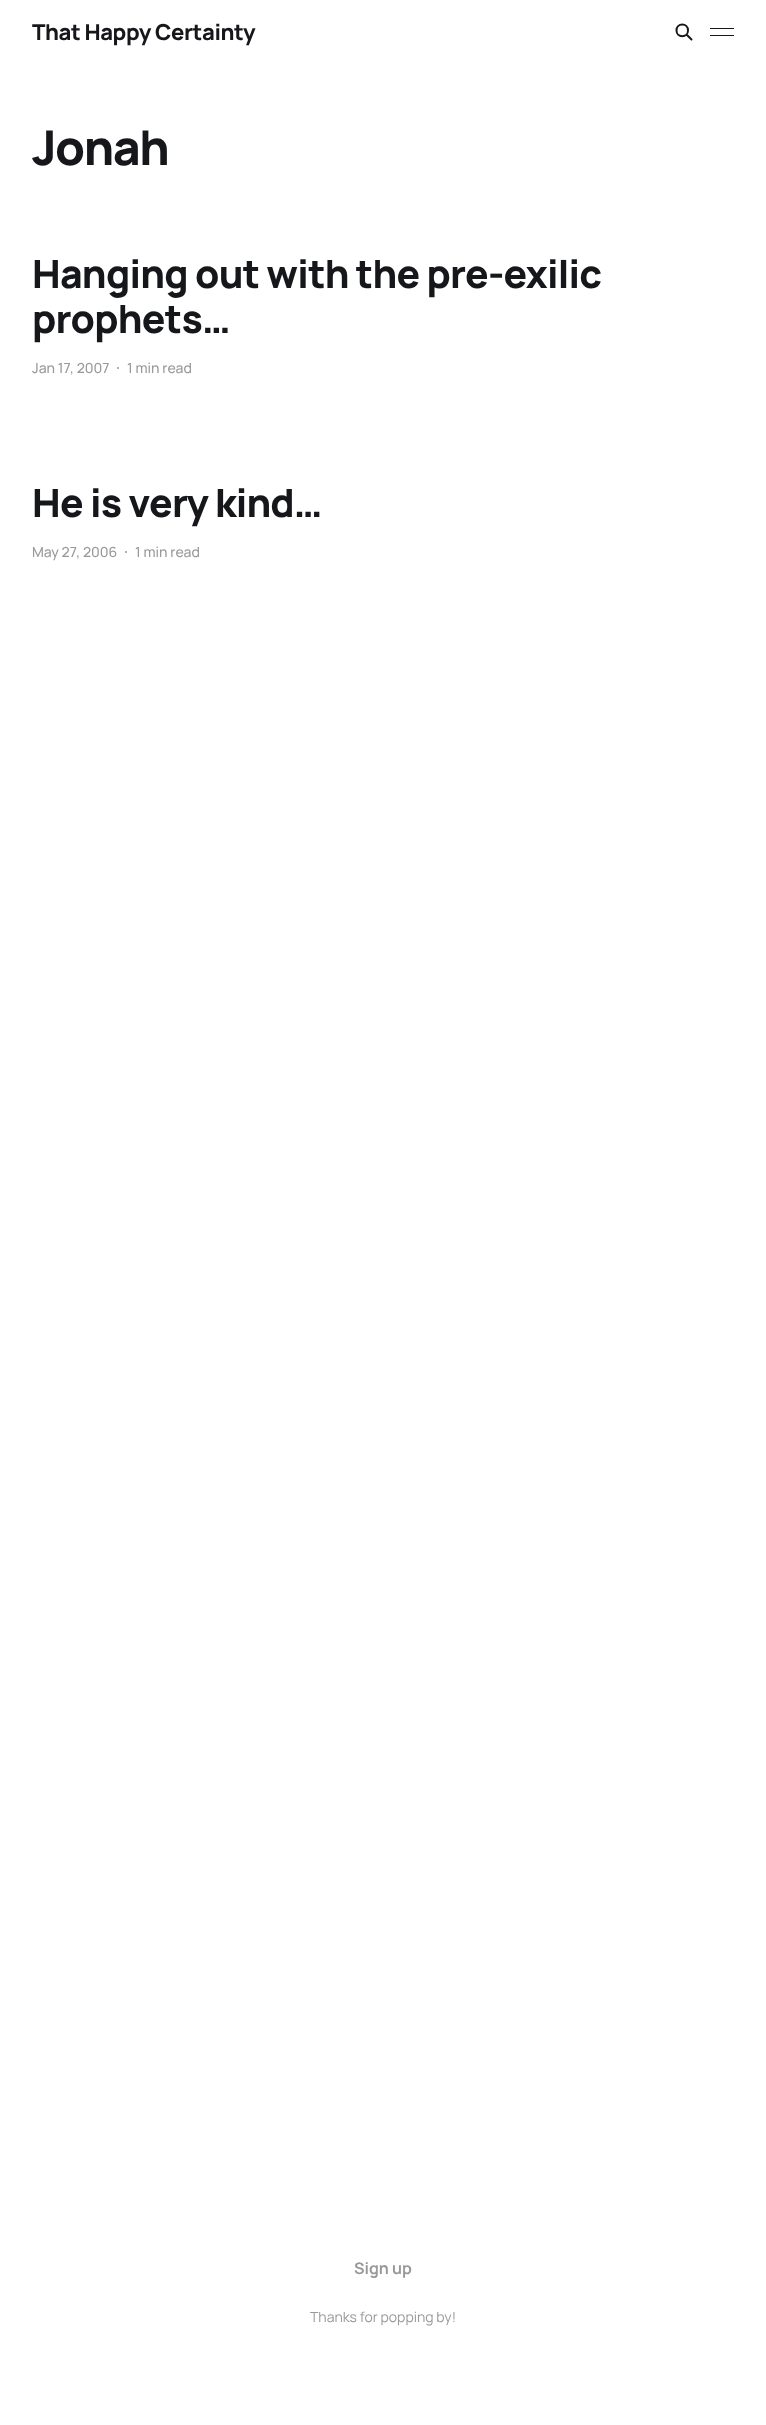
(async () => {
const canvas = document.querySelector("canvas")
canvas.width = 766
canvas.height = 2425
const c = canvas.getContext("2d")
c.miterLimit = 4
c.fontKerning = "normal"
function T(s,x,y){c.fillText(s,x,y)}
function R(x,y,w,h){c.fillRect(x,y,w,h)}
let path
c.fillStyle="#fff"
R(0,0,766,2425)
c.letterSpacing="-0.4px"
c.font="800 22px Manrope"
c.fillStyle="#15171a"
T("That Happy Certainty",32,40)
path = new Path2D("M691.5 39.5l-5-5zm-3.5-9c0 7.5-11.5 7.5-11.5 0c0-8 11.5-8 11.5 0z")
c.strokeStyle="#15171a"
c.lineWidth=2
c.lineCap="round"
c.lineJoin="round"
c.stroke(path)
R(710,28,24,1)
R(710,35,24,1)
c.letterSpacing="-1.5px"
c.font="800 48px Manrope"
T("Jonah",32,165)
c.letterSpacing="-0.75px"
c.font="800 39px Manrope"
T("Hanging out with the pre-exilic",32,288)
T("prophets…",32,333)
c.letterSpacing="0px"
c.font="500 14px Manrope"
c.fillStyle="#999"
T("Jan 17, 2007",32,373)
c.beginPath()
c.arc(118,368,1,0,7)
c.fill()
T("1 min read",127,373)
c.letterSpacing="-0.75px"
c.font="800 39px Manrope"
c.fillStyle="#15171a"
T("He is very kind…",32,517)
c.letterSpacing="0px"
c.font="500 14px Manrope"
c.fillStyle="#999"
T("May 27, 2006",32,557)
c.beginPath()
c.arc(126,552,1,0,7)
c.fill()
T("1 min read",135,557)
c.font="bold 16px Manrope"
T("Sign up",354,2274)
c.font="14px Manrope"
T("Thanks for popping by!",310,2322)
})()
